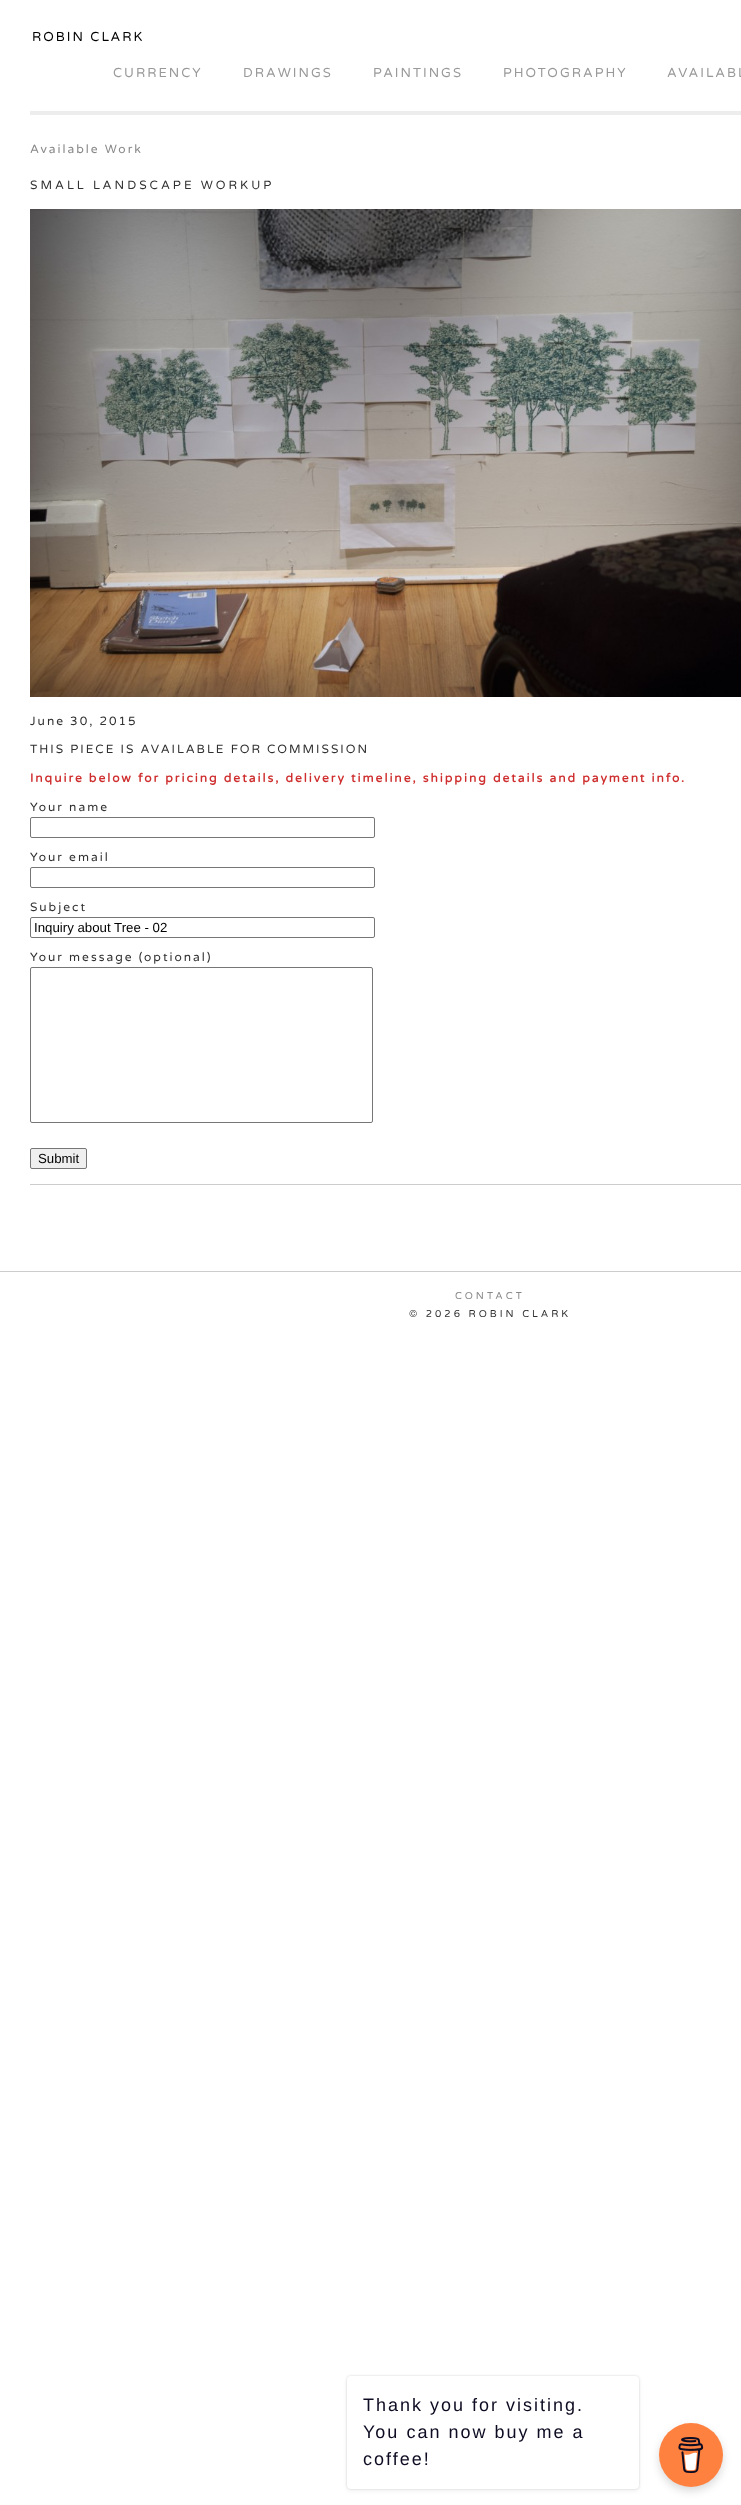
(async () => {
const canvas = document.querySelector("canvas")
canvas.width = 741
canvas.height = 2505
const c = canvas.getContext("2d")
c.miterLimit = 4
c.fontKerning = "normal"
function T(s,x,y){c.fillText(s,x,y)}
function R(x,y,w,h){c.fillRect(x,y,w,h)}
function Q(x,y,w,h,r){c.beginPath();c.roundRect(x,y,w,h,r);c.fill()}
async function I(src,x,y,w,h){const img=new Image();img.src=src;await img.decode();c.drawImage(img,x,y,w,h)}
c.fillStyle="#fff"
R(0,0,741,2505)
c.letterSpacing="2px"
c.font="13px Varela Round"
c.fillStyle="#000"
T("ROBIN CLARK",32,41)
c.fillStyle="#999"
T("CURRENCY",113,77)
T("DRAWINGS",243,77)
T("PAINTINGS",373,77)
T("PHOTOGRAPHY",503,77)
T("AVAILABL",667,77)
c.fillStyle="#ededed"
R(30,111,711,4)
c.font="12px Varela Round"
c.fillStyle="#888"
T("Available Work",30,153)
c.letterSpacing="3px"
c.fillStyle="#313131"
T("SMALL LANDSCAPE WORKUP",30,189)
await I("1.png",30,209,711,488)
c.letterSpacing="2px"
T("June 30, 2015",30,725)
c.fillStyle="#ccc"
R(30,1184,711,1)
c.fillStyle="#313131"
T("THIS PIECE IS AVAILABLE FOR COMMISSION",30,753)
c.font="bold 12px Varela Round"
c.fillStyle="#cf2e2e"
T("Inquire below for pricing details, delivery timeline, shipping details and payment info.",30,782)
c.font="12px Varela Round"
c.fillStyle="#313131"
T("Your name",30,811)
c.beginPath()
c.roundRect(30.5,817.5,344,20,1.5)
c.strokeStyle="#767676"
c.stroke()
T("Your email",30,861)
c.beginPath()
c.roundRect(30.5,867.5,344,20,1.5)
c.stroke()
T("Subject",30,911)
c.beginPath()
c.roundRect(30.5,917.5,344,20,1.5)
c.stroke()
c.letterSpacing="0px"
c.font="13.25px Liberation Sans"
c.fillStyle="#000"
T("Inquiry about Tree - 02",34,932)
c.letterSpacing="2px"
c.font="12px Varela Round"
c.fillStyle="#313131"
T("Your message (optional)",30,961)
c.beginPath()
c.roundRect(30.5,967.5,342,155,1.5)
c.stroke()
c.fillStyle="#efefef"
c.beginPath()
c.roundRect(30.5,1148.5,56,20,1.5)
c.fill()
c.stroke()
c.letterSpacing="0px"
c.font="13.25px Liberation Sans"
c.fillStyle="#000"
T("Submit",38,1163)
c.fillStyle="#ccc"
R(0,1271,741,1)
c.letterSpacing="3px"
c.font="10px Varela Round"
c.fillStyle="#888"
T("CONTACT",455,1299)
c.fillStyle="#313131"
T("© 2026 ROBIN CLARK",409,1317)
c.fillStyle="#00000026"
c.filter="blur(1px)"
c.beginPath()
c.roundRect(347,2376,292,113,4)
c.fill()
c.filter="none"
c.fillStyle="#0000000d"
c.filter="blur(2.5px)"
c.beginPath()
c.roundRect(347,2378,292,113,4)
c.fill()
c.filter="none"
c.fillStyle="#fff"
Q(347,2376,292,113,4)
c.letterSpacing="2px"
c.font="18px Liberation Sans"
c.fillStyle="#0d0c22"
T("Thank you for visiting.",363,2411)
T("You can now buy me a",363,2438)
T("coffee!",363,2465)
c.fillStyle="#00000026"
c.filter="blur(4px)"
c.beginPath()
c.roundRect(659,2427,64,64,32)
c.fill()
c.filter="none"
c.fillStyle="#ff813f"
c.beginPath()
c.arc(691,2455,32,0,7)
c.fill()
await I("2.png",678,2437,26,36)
})()
